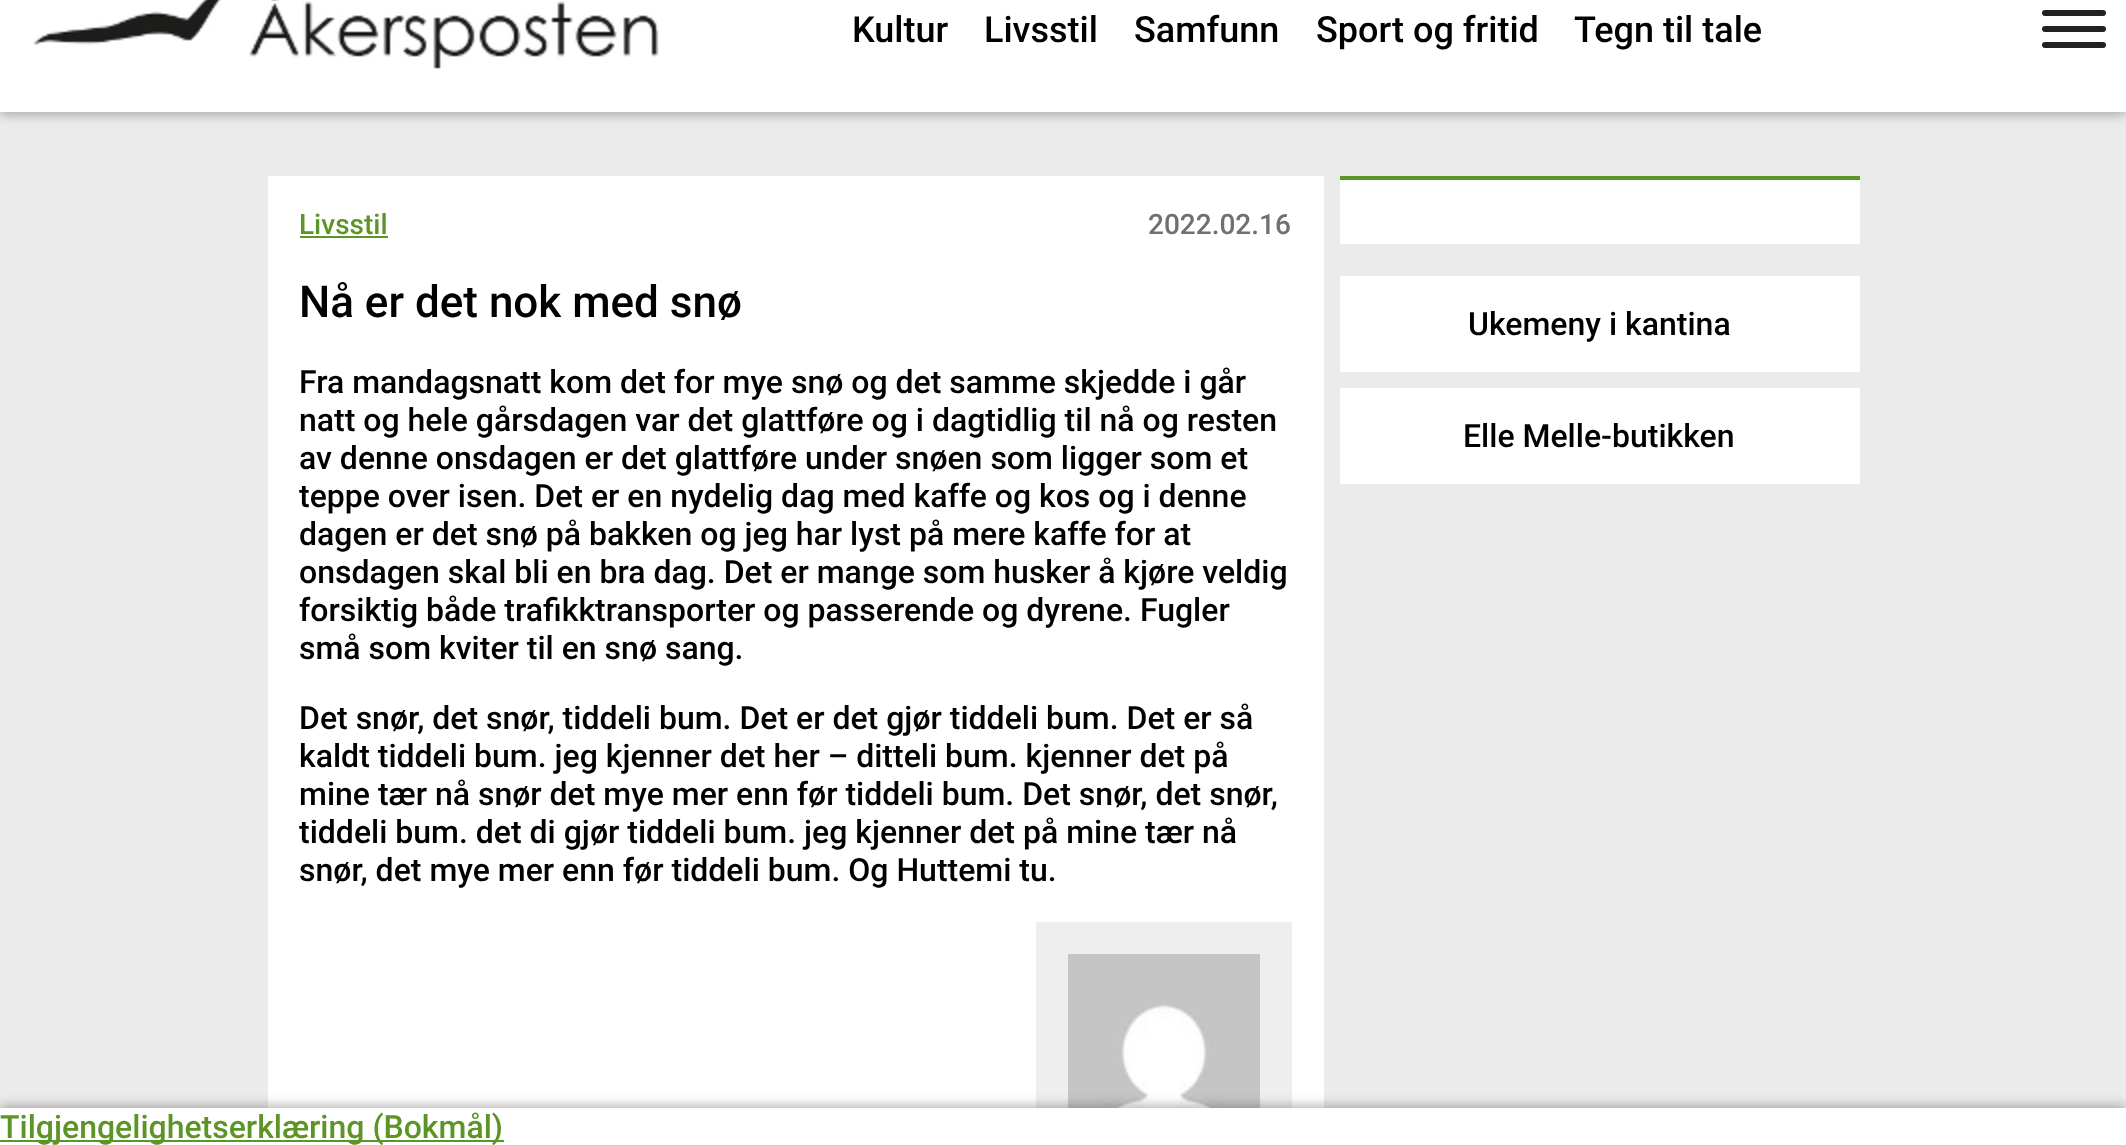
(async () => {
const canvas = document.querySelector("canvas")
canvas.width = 2126
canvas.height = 1145
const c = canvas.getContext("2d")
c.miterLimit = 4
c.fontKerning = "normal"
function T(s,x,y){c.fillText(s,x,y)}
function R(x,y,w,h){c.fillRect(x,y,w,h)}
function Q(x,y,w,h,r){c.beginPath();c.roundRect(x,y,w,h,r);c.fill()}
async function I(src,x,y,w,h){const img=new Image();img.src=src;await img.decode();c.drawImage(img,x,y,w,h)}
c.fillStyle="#ebebeb"
R(0,0,2126,1145)
c.fillStyle="#33333366"
c.filter="blur(6px)"
c.beginPath()
c.rect(0,-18,2126,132)
c.fill()
c.filter="none"
c.fillStyle="#fff"
R(0,0,2126,112)
await I("1.png",33,0,626,69)
c.font="500 36px Roboto"
c.fillStyle="#000"
T("Kultur",852,42)
T("Livsstil",984,42)
T("Samfunn",1134,42)
T("Sport og fritid",1316,42)
T("Tegn til tale",1574,42)
c.fillStyle="#222"
Q(2042,10,64,6,3)
Q(2042,26,64,6,3)
Q(2042,42,64,6,3)
c.fillStyle="#fff"
R(268,176,1056,932)
c.font="500 28px Roboto"
c.fillStyle="#5c9425"
T("Livsstil",299,234)
R(300,236,88,2)
c.fillStyle="#707070"
T("2022.02.16",1148,234)
c.font="500 44px Roboto"
c.fillStyle="#000"
T("Nå er det nok med snø",299,317)
c.font="500 32px Roboto"
T("Fra mandagsnatt kom det for mye snø og det samme skjedde i går",299,393)
T("natt og hele gårsdagen var det glattføre og i dagtidlig til nå og resten",299,431)
T("av denne onsdagen er det glattføre under snøen som ligger som et",299,469)
T("teppe over isen. Det er en nydelig dag med kaffe og kos og i denne",299,507)
T("dagen er det snø på bakken og jeg har lyst på mere kaffe for at",299,545)
T("onsdagen skal bli en bra dag. Det er mange som husker å kjøre veldig",299,583)
T("forsiktig både trafikktransporter og passerende og dyrene. Fugler",299,621)
T("små som kviter til en snø sang.",299,659)
T("Det snør, det snør, tiddeli bum. Det er det gjør tiddeli bum. Det er så",299,729)
T("kaldt tiddeli bum. jeg kjenner det her – ditteli bum. kjenner det på",299,767)
T("mine tær nå snør det mye mer enn før tiddeli bum. Det snør, det snør,",299,805)
T("tiddeli bum. det di gjør tiddeli bum. jeg kjenner det på mine tær nå",299,843)
T("snør, det mye mer enn før tiddeli bum. Og Huttemi tu.",299,881)
c.fillStyle="#eee"
R(1036,922,256,186)
await I("2.png",1068,954,192,154)
c.fillStyle="#fff"
R(1340,180,520,64)
c.fillStyle="#5c9425"
R(1340,176,520,4)
c.fillStyle="#fff"
R(1340,276,520,96)
c.fillStyle="#000"
T("Ukemeny i kantina",1468,335)
c.fillStyle="#fff"
R(1340,388,520,96)
c.fillStyle="#000"
T("Elle Melle-butikken",1463,447)
c.fillStyle="#33333366"
c.filter="blur(6px)"
c.beginPath()
c.rect(0,1106,2126,38)
c.fill()
c.filter="none"
c.fillStyle="#fff"
R(0,1108,2126,37)
c.fillStyle="#5c9425"
R(0,1140,504,2)
T("Tilgjengelighetserklæring (Bokmål)",0,1138)
})()
